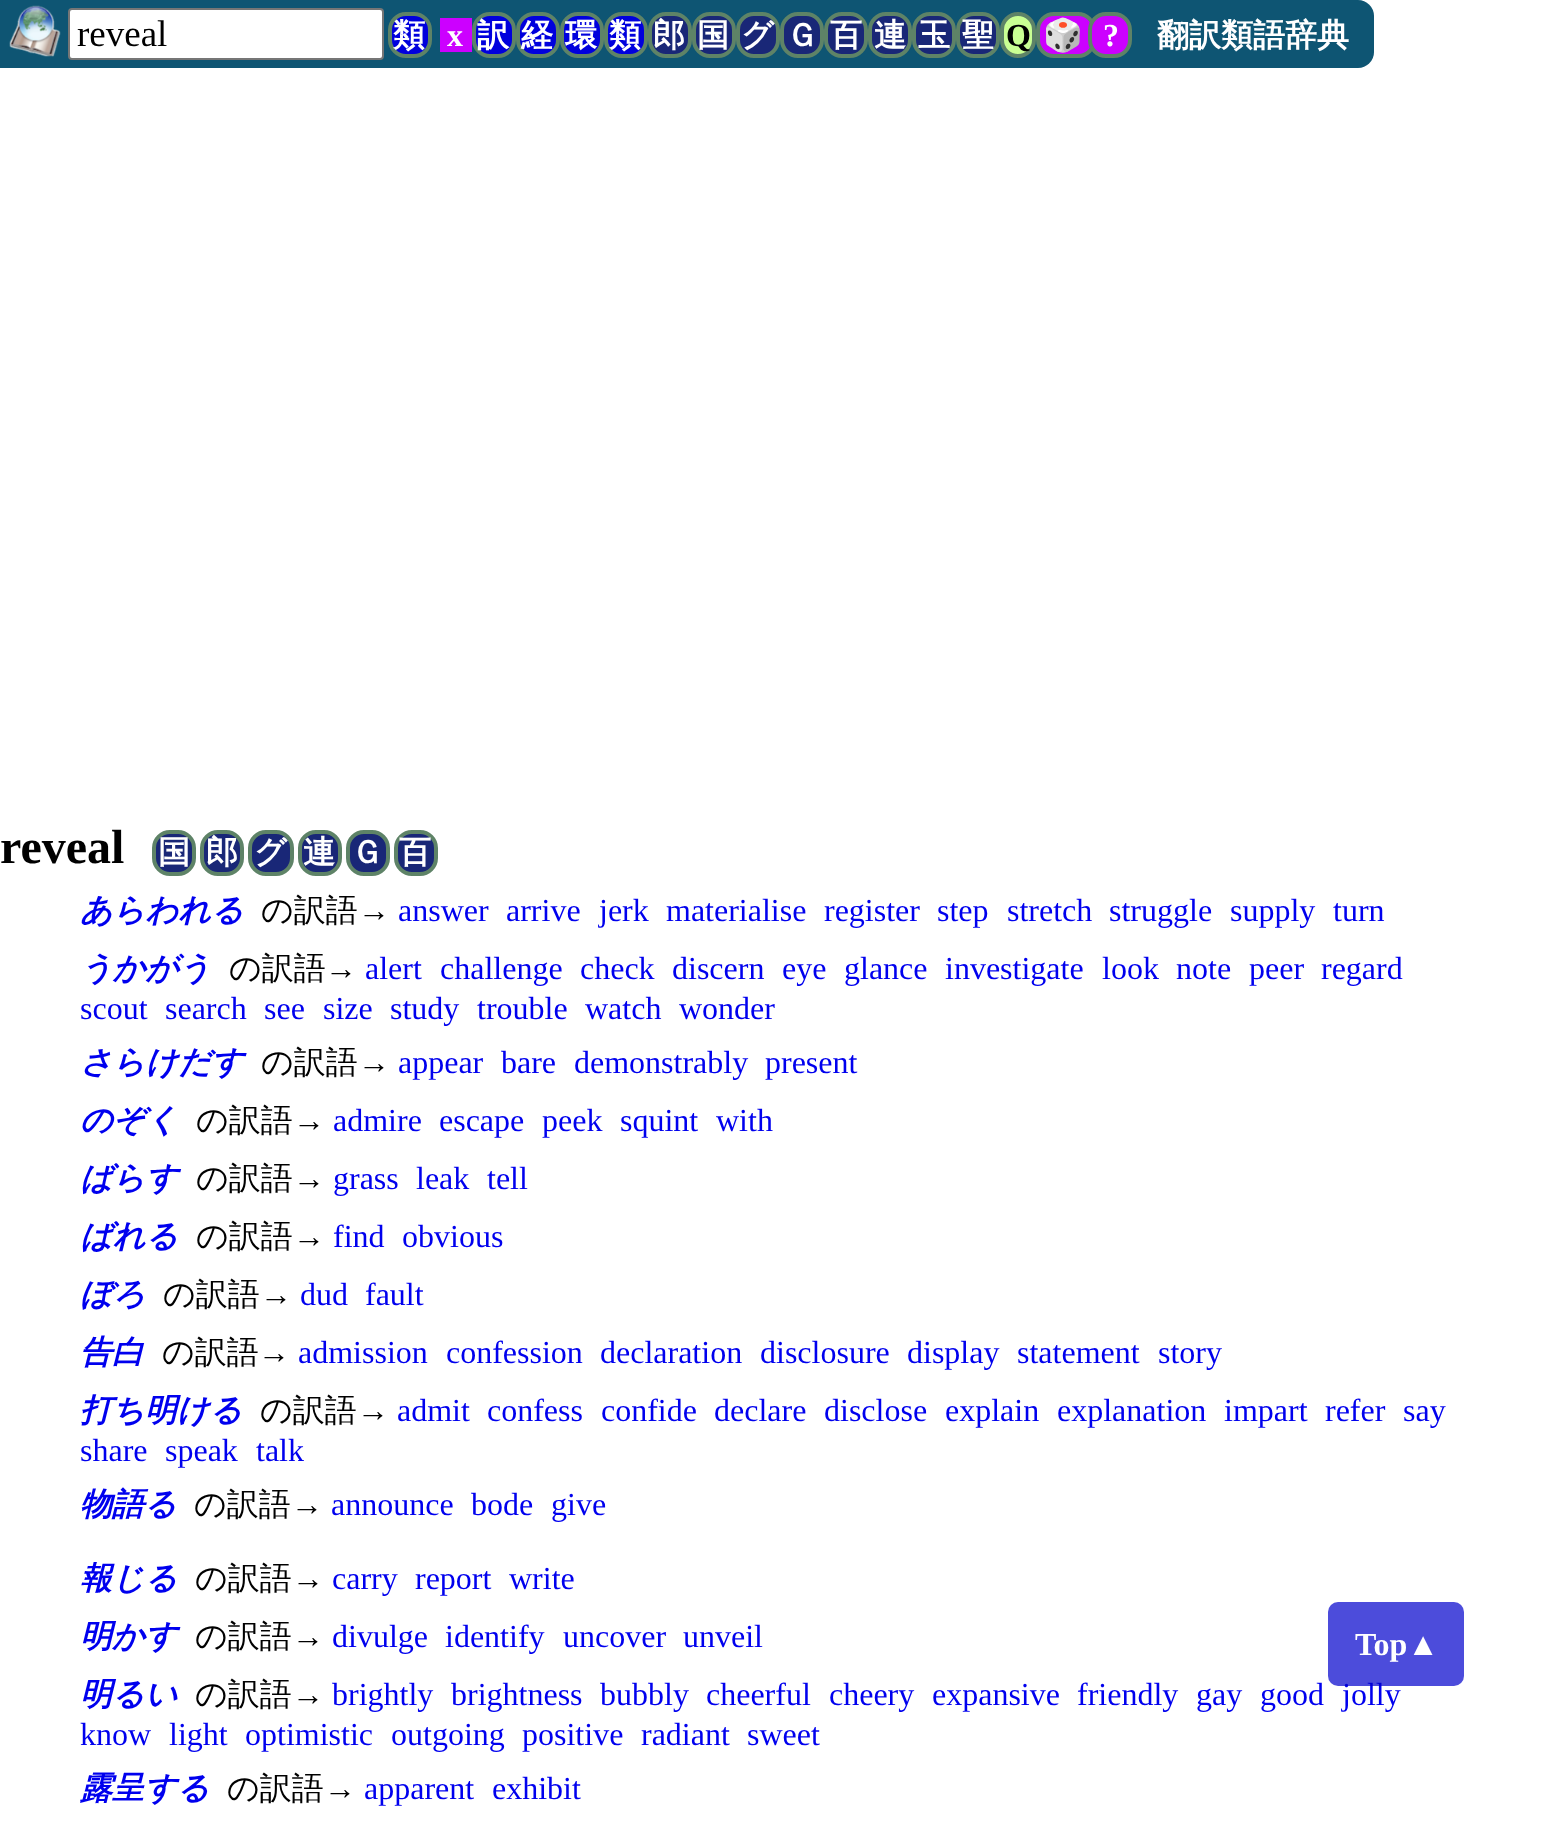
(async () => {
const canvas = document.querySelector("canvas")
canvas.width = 1559
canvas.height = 1845
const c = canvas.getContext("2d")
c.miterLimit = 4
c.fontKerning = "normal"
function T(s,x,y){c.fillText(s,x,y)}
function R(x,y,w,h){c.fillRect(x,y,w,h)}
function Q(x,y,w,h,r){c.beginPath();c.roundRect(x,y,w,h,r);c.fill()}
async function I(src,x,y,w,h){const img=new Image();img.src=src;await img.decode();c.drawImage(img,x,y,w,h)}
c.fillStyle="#fff"
R(0,0,1559,1845)
c.fillStyle="#0e5573"
c.beginPath()
c.roundRect(0,0,1374,68,[0,16,16,0])
c.fill()
await I("1.png",9,5,52,52)
c.fillStyle="#fff"
c.beginPath()
c.roundRect(69,9,314,50,3)
c.fill()
c.strokeStyle="#767676"
c.lineWidth=2
c.stroke()
c.font="37px Liberation Serif"
c.fillStyle="#000"
T("reveal",77,46)
c.fillStyle="#00d"
c.beginPath()
c.roundRect(390,14,40,42,16)
c.fill()
c.strokeStyle="#5e8367"
c.lineWidth=4
c.stroke()
c.font="bold 32px WenQuanYi Zen Hei"
c.fillStyle="#fff"
T("類",393,46)
c.fillStyle="#c0f"
R(440,18,32,34)
c.font="bold 32px Liberation Serif"
c.fillStyle="#fff"
T("x",447,46)
c.fillStyle="#00d"
c.beginPath()
c.roundRect(474,14,40,42,16)
c.fill()
c.stroke()
c.font="bold 32px WenQuanYi Zen Hei"
c.fillStyle="#fff"
T("訳",477,46)
c.fillStyle="#00d"
c.beginPath()
c.roundRect(518,14,40,42,16)
c.fill()
c.stroke()
c.fillStyle="#fff"
T("経",521,46)
c.fillStyle="#00d"
c.beginPath()
c.roundRect(562,14,40,42,16)
c.fill()
c.stroke()
c.fillStyle="#fff"
T("環",565,46)
c.fillStyle="#00d"
c.beginPath()
c.roundRect(606,14,40,42,16)
c.fill()
c.stroke()
c.fillStyle="#fff"
T("類",609,46)
c.fillStyle="#192777"
c.beginPath()
c.roundRect(650,14,40,42,16)
c.fill()
c.stroke()
c.fillStyle="#fff"
T("郎",653,46)
c.fillStyle="#192777"
c.beginPath()
c.roundRect(694,14,40,42,16)
c.fill()
c.stroke()
c.fillStyle="#fff"
T("国",697,46)
c.fillStyle="#192777"
c.beginPath()
c.roundRect(738,14,40,42,16)
c.fill()
c.stroke()
c.fillStyle="#fff"
T("グ",741,46)
c.fillStyle="#192777"
c.beginPath()
c.roundRect(782,14,40,42,16)
c.fill()
c.stroke()
c.fillStyle="#fff"
T("Ｇ",786,46)
c.fillStyle="#192777"
c.beginPath()
c.roundRect(826,14,40,42,16)
c.fill()
c.stroke()
c.fillStyle="#fff"
T("百",830,46)
c.fillStyle="#192777"
c.beginPath()
c.roundRect(870,14,40,42,16)
c.fill()
c.stroke()
c.fillStyle="#fff"
T("連",874,46)
c.fillStyle="#192777"
c.beginPath()
c.roundRect(914,14,40,42,16)
c.fill()
c.stroke()
c.fillStyle="#fff"
T("玉",918,46)
c.fillStyle="#192777"
c.beginPath()
c.roundRect(958,14,40,42,16)
c.fill()
c.stroke()
c.fillStyle="#fff"
T("聖",962,46)
c.fillStyle="#c9ff93"
c.beginPath()
c.roundRect(1002,14,32,42,16)
c.fill()
c.stroke()
c.font="bold 32px Liberation Serif"
c.fillStyle="#000"
T("Q",1006,46)
c.fillStyle="#c0f"
c.beginPath()
c.roundRect(1038,14,56,42,16)
c.fill()
c.stroke()
c.font="bold 32px Noto Color Emoji"
c.fillStyle="#fff"
T("🎲",1043,46)
c.fillStyle="#c0f"
c.beginPath()
c.roundRect(1090,14,40,42,16)
c.fill()
c.stroke()
c.font="bold 32px Liberation Serif"
c.fillStyle="#fff"
T("?",1103,46)
c.font="bold 32px WenQuanYi Zen Hei"
T("翻訳類語辞典",1157,46)
c.font="bold 48px Liberation Serif"
c.fillStyle="#000"
T("reveal",0,863)
c.fillStyle="#192777"
c.beginPath()
c.roundRect(154,832,40,42,16)
c.fill()
c.stroke()
c.font="bold 32px WenQuanYi Zen Hei"
c.fillStyle="#fff"
T("国",158,863)
c.fillStyle="#192777"
c.beginPath()
c.roundRect(202,832,40,42,16)
c.fill()
c.stroke()
c.fillStyle="#fff"
T("郎",206,863)
c.fillStyle="#192777"
c.beginPath()
c.roundRect(250,832,42,42,16)
c.fill()
c.stroke()
c.fillStyle="#fff"
T("グ",254,863)
c.fillStyle="#192777"
c.beginPath()
c.roundRect(300,832,40,42,16)
c.fill()
c.stroke()
c.fillStyle="#fff"
T("連",303,863)
c.fillStyle="#192777"
c.beginPath()
c.roundRect(348,832,40,42,16)
c.fill()
c.stroke()
c.fillStyle="#fff"
T("Ｇ",351,863)
c.fillStyle="#192777"
c.beginPath()
c.roundRect(396,832,40,42,16)
c.fill()
c.stroke()
c.fillStyle="#fff"
T("百",399,863)
c.font="italic bold 32px WenQuanYi Zen Hei"
c.fillStyle="#00e"
T("あらわれる",80,921)
c.font="500 32px WenQuanYi Zen Hei"
c.fillStyle="#000"
T("の訳語",261,921)
c.font="32px Liberation Serif"
T("→",358,921)
c.fillStyle="#00e"
T("answer",398,921)
T("arrive",506,921)
T("jerk",599,921)
T("materialise",666,921)
T("register",824,921)
T("step",937,921)
T("stretch",1007,921)
T("struggle",1109,921)
T("supply",1230,921)
T("turn",1333,921)
c.font="italic bold 32px WenQuanYi Zen Hei"
T("うかがう",80,979)
c.font="500 32px WenQuanYi Zen Hei"
c.fillStyle="#000"
T("の訳語",229,979)
c.font="32px Liberation Serif"
T("→",325,979)
c.fillStyle="#00e"
T("alert",365,979)
T("challenge",440,979)
T("check",580,979)
T("discern",672,979)
T("eye",782,979)
T("glance",844,979)
T("investigate",945,979)
T("look",1102,979)
T("note",1176,979)
T("peer",1249,979)
T("regard",1321,979)
T("scout",80,1019)
T("search",165,1019)
T("see",264,1019)
T("size",323,1019)
T("study",390,1019)
T("trouble",477,1019)
T("watch",585,1019)
T("wonder",679,1019)
c.font="italic bold 32px WenQuanYi Zen Hei"
T("さらけだす",80,1073)
c.font="500 32px WenQuanYi Zen Hei"
c.fillStyle="#000"
T("の訳語",261,1073)
c.font="32px Liberation Serif"
T("→",358,1073)
c.fillStyle="#00e"
T("appear",398,1073)
T("bare",501,1073)
T("demonstrably",574,1073)
T("present",765,1073)
c.font="italic bold 32px WenQuanYi Zen Hei"
T("のぞく",80,1131)
c.font="500 32px WenQuanYi Zen Hei"
c.fillStyle="#000"
T("の訳語",196,1131)
c.font="32px Liberation Serif"
T("→",293,1131)
c.fillStyle="#00e"
T("admire",333,1131)
T("escape",439,1131)
T("peek",542,1131)
T("squint",620,1131)
T("with",716,1131)
c.font="italic bold 32px WenQuanYi Zen Hei"
T("ばらす",80,1189)
c.font="500 32px WenQuanYi Zen Hei"
c.fillStyle="#000"
T("の訳語",196,1189)
c.font="32px Liberation Serif"
T("→",293,1189)
c.fillStyle="#00e"
T("grass",333,1189)
T("leak",416,1189)
T("tell",487,1189)
c.font="italic bold 32px WenQuanYi Zen Hei"
T("ばれる",80,1247)
c.font="500 32px WenQuanYi Zen Hei"
c.fillStyle="#000"
T("の訳語",196,1247)
c.font="32px Liberation Serif"
T("→",293,1247)
c.fillStyle="#00e"
T("find",333,1247)
T("obvious",402,1247)
c.font="italic bold 32px WenQuanYi Zen Hei"
T("ぼろ",80,1305)
c.font="500 32px WenQuanYi Zen Hei"
c.fillStyle="#000"
T("の訳語",163,1305)
c.font="32px Liberation Serif"
T("→",260,1305)
c.fillStyle="#00e"
T("dud",300,1305)
T("fault",365,1305)
c.font="italic bold 32px WenQuanYi Zen Hei"
T("告白",80,1363)
c.font="500 32px WenQuanYi Zen Hei"
c.fillStyle="#000"
T("の訳語",162,1363)
c.font="32px Liberation Serif"
T("→",258,1363)
c.fillStyle="#00e"
T("admission",298,1363)
T("confession",446,1363)
T("declaration",600,1363)
T("disclosure",760,1363)
T("display",907,1363)
T("statement",1017,1363)
T("story",1158,1363)
c.font="italic bold 32px WenQuanYi Zen Hei"
T("打ち明ける",80,1421)
c.font="500 32px WenQuanYi Zen Hei"
c.fillStyle="#000"
T("の訳語",260,1421)
c.font="32px Liberation Serif"
T("→",357,1421)
c.fillStyle="#00e"
T("admit",397,1421)
T("confess",487,1421)
T("confide",601,1421)
T("declare",714,1421)
T("disclose",824,1421)
T("explain",945,1421)
T("explanation",1057,1421)
T("impart",1224,1421)
T("refer",1325,1421)
T("say",1403,1421)
T("share",80,1461)
T("speak",165,1461)
T("talk",256,1461)
c.font="italic bold 32px WenQuanYi Zen Hei"
T("物語る",80,1515)
c.font="500 32px WenQuanYi Zen Hei"
c.fillStyle="#000"
T("の訳語",194,1515)
c.font="32px Liberation Serif"
T("→",291,1515)
c.fillStyle="#00e"
T("announce",331,1515)
T("bode",471,1515)
T("give",551,1515)
c.font="italic bold 32px WenQuanYi Zen Hei"
T("報じる",80,1589)
c.font="500 32px WenQuanYi Zen Hei"
c.fillStyle="#000"
T("の訳語",195,1589)
c.font="32px Liberation Serif"
T("→",292,1589)
c.fillStyle="#00e"
T("carry",332,1589)
T("report",415,1589)
T("write",509,1589)
c.font="italic bold 32px WenQuanYi Zen Hei"
T("明かす",80,1647)
c.font="500 32px WenQuanYi Zen Hei"
c.fillStyle="#000"
T("の訳語",195,1647)
c.font="32px Liberation Serif"
T("→",292,1647)
c.fillStyle="#00e"
T("divulge",332,1647)
T("identify",445,1647)
T("uncover",563,1647)
T("unveil",683,1647)
c.font="italic bold 32px WenQuanYi Zen Hei"
T("明るい",80,1705)
c.font="500 32px WenQuanYi Zen Hei"
c.fillStyle="#000"
T("の訳語",195,1705)
c.font="32px Liberation Serif"
T("→",292,1705)
c.fillStyle="#00e"
T("brightly",332,1705)
T("brightness",451,1705)
T("bubbly",600,1705)
T("cheerful",706,1705)
T("cheery",829,1705)
T("expansive",932,1705)
T("friendly",1077,1705)
T("gay",1196,1705)
T("good",1260,1705)
T("jolly",1342,1705)
T("know",80,1745)
T("light",169,1745)
T("optimistic",245,1745)
T("outgoing",391,1745)
T("positive",522,1745)
T("radiant",641,1745)
T("sweet",747,1745)
c.font="italic bold 32px WenQuanYi Zen Hei"
T("露呈する",80,1799)
c.font="500 32px WenQuanYi Zen Hei"
c.fillStyle="#000"
T("の訳語",227,1799)
c.font="32px Liberation Serif"
T("→",324,1799)
c.fillStyle="#00e"
T("apparent",364,1799)
T("exhibit",492,1799)
c.fillStyle="#0000ccb3"
Q(1328,1602,136,84,10)
c.font="bold 32px Liberation Serif"
c.fillStyle="#fff"
T("Top▲",1355,1655)
})()
